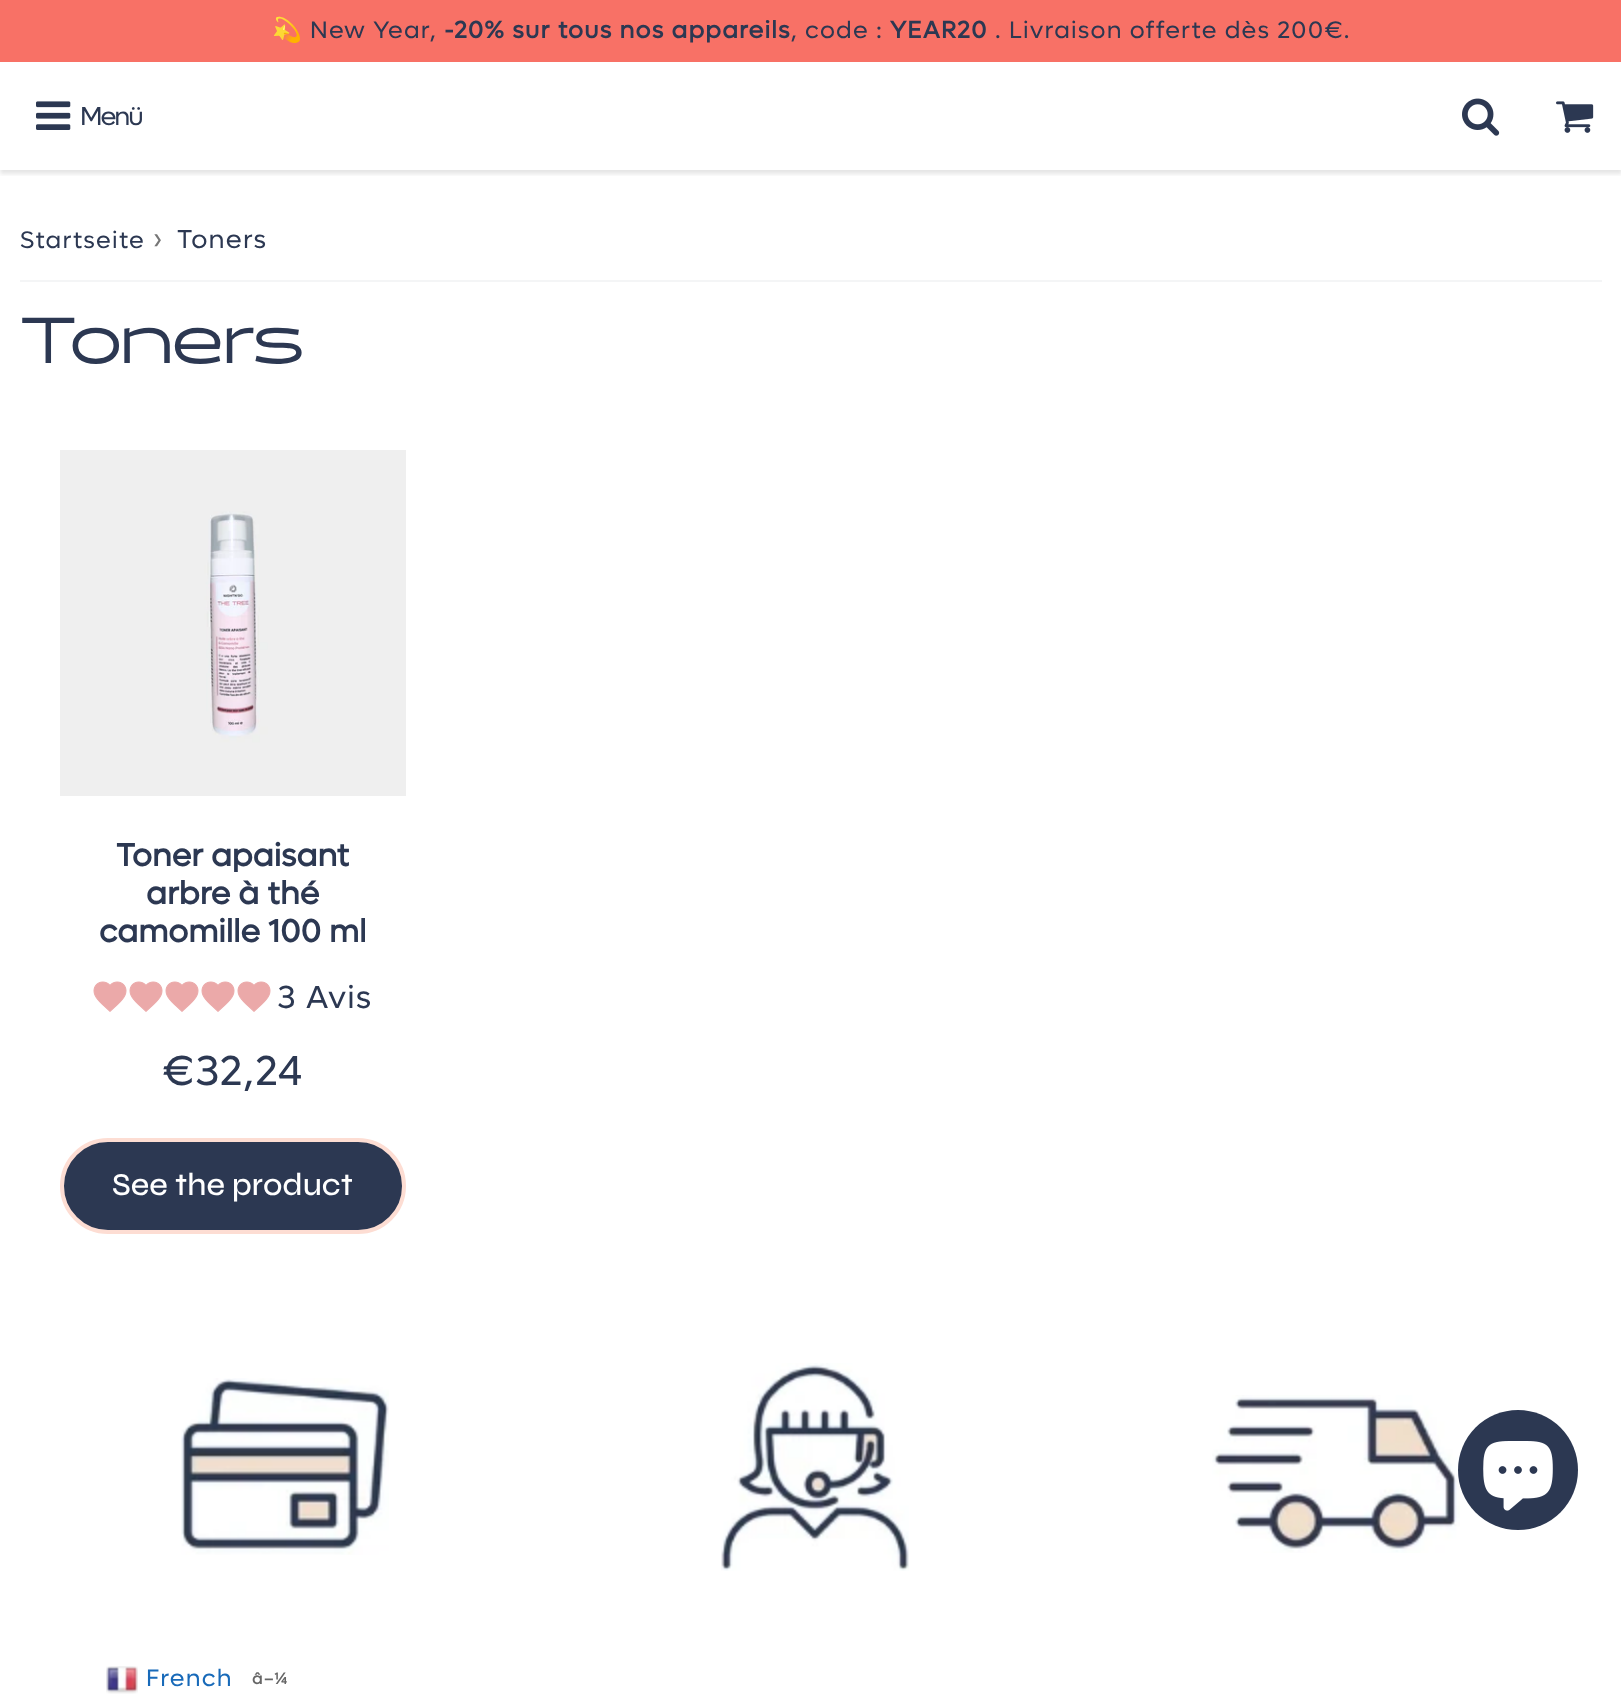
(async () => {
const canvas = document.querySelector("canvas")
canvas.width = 1621
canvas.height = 1700
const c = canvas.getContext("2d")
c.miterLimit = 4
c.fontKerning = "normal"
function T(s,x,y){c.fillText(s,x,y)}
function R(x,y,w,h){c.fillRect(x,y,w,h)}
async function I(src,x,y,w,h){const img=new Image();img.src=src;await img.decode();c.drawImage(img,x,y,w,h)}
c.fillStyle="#fff"
R(0,0,1621,1700)
c.save()
c.beginPath()
c.rect(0,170,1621,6)
c.clip()
c.fillStyle="#0000001a"
c.filter="blur(2px)"
c.beginPath()
c.rect(0,66,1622,108)
c.fill()
c.filter="none"
c.restore()
c.fillStyle="#f87166"
R(0,0,1621,62)
c.letterSpacing="1.2px"
c.font="24px Noto Color Emoji"
c.fillStyle="#2c3852"
T("💫",272,38)
c.font="24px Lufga"
T("New Year,",310,38)
c.font="bold 24px Lufga"
T("-20% sur tous nos appareils",444,38)
c.font="24px Lufga"
T(", code :",791,38)
c.font="bold 24px Lufga"
T("YEAR20",890,38)
c.font="24px Lufga"
T(". Livraison offerte dès 200€.",995,38)
await I("1.png",36,101,35,29)
c.letterSpacing="-2px"
c.font="26px Lufga"
T("Menü",80,125)
await I("2.png",1462,98,38,38)
await I("3.png",1556,101,38,32)
c.fillStyle="#f4f5f6"
R(20,280,1582,2)
c.letterSpacing="1.2px"
c.font="24px Lufga"
c.fillStyle="#2c3852"
T("Startseite",20,248)
c.font="30px Questrial"
c.fillStyle="#767676"
T("›",153,248)
c.font="26px Lufga"
c.fillStyle="#2c3852"
T("Toners",177,248)
c.letterSpacing="0px"
c.font="bold 62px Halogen"
T("Toners",20,363)
await I("4.png",60,450,346,346)
c.font="bold 32px Lufga"
T("Toner apaisant",116,866)
T("arbre à thé",146,904)
T("camomille 100 ml",99,942)
await I("5.png",93,981,34,31)
await I("5.png",129,981,34,31)
await I("5.png",165,981,34,31)
await I("5.png",201,981,34,31)
await I("5.png",237,981,34,31)
c.letterSpacing="1.2px"
c.font="32px Lufga"
T("3 Avis",277,1008)
c.font="42px Lufga"
T("€32,24",162,1085)
c.beginPath()
c.roundRect(62,1140,342,92,46)
c.fill()
c.strokeStyle="#fdddd3"
c.lineWidth=4
c.stroke()
c.letterSpacing="0px"
c.font="500 32px Syne"
c.fillStyle="#fff"
T("See the product",112,1195)
await I("6.png",181,1378,208,177)
await I("7.png",721,1363,188,208)
await I("8.png",1212,1395,248,158)
c.fillStyle="#2c3852"
c.beginPath()
c.arc(1518,1470,60,0,7)
c.fill()
await I("9.png",1483,1441,70,70)
await I("10.png",106,1666,32,28)
c.letterSpacing="1.2px"
c.font="24px Lufga"
c.fillStyle="#186ab9"
T("French",146,1686)
c.font="bold 16px Lufga"
c.fillStyle="#666"
T("â–¼",252,1684)
})()
